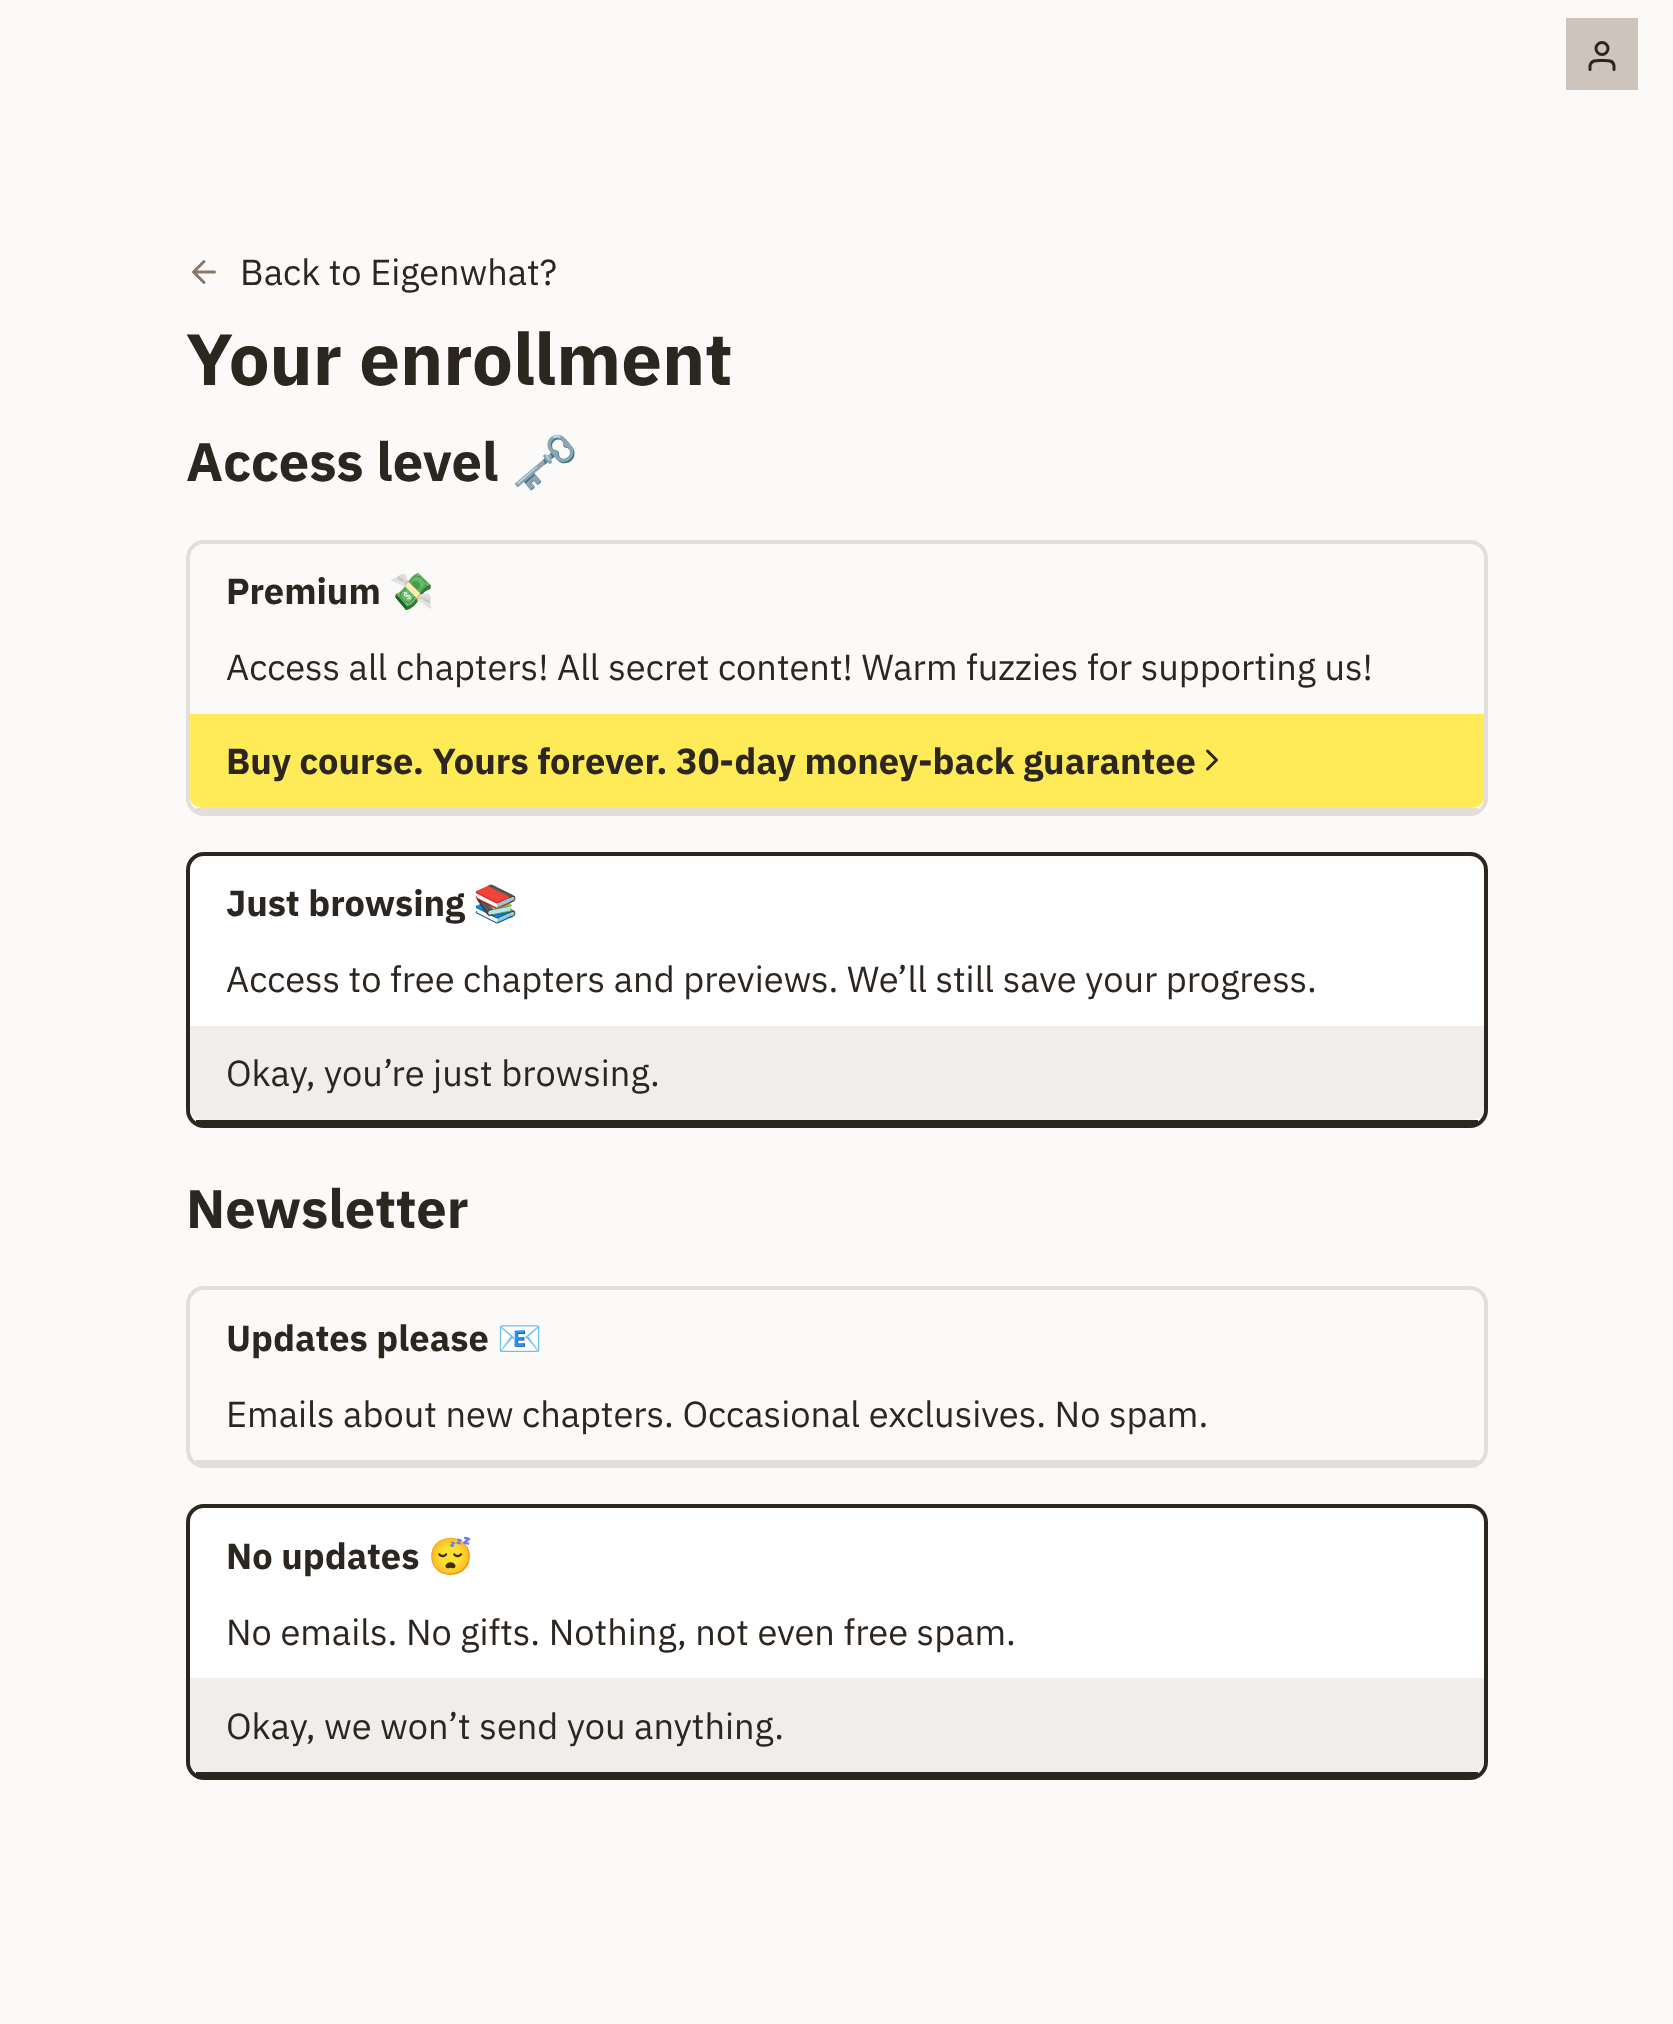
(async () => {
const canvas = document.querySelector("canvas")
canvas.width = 1673
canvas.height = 2024
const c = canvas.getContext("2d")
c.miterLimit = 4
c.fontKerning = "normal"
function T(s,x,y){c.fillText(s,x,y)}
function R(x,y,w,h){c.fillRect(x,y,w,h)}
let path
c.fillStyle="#fbfaf9"
R(0,0,1673,2024)
c.fillStyle="#cdc4bc"
R(1566,18,72,72)
c.beginPath()
c.arc(1602,48.5,6,0,7)
c.strokeStyle="#2c2621"
c.lineWidth=3
c.stroke()
path = new Path2D("M1614 69.5v-4c-1-6-7.5-5-12-5c-4.5 0-10.5-1-12 5v4")
c.lineCap="round"
c.lineJoin="round"
c.stroke(path)
c.font="36.2px IBM Plex Sans"
c.fillStyle="#2c2621"
T("Back to Eigenwhat?",240,285)
path = new Path2D("M214.5 272h-21m10.5 10.5l-10.5-10.5l10.5-10.5")
c.strokeStyle="#8a7866"
c.stroke(path)
c.font="bold 72.5px IBM Plex Sans"
T("Your enrollment",186,385)
c.font="bold 54.25px IBM Plex Sans"
T("Access level",186,481)
c.font="bold 54.25px Noto Color Emoji"
T("🗝️",511,481)
c.beginPath()
c.roundRect(188,542,1298,272,16)
c.strokeStyle="#e3ded9"
c.lineWidth=4
c.lineJoin="miter"
c.stroke()
c.fillStyle="#e3ded9"
R(196,808,1282,4)
c.font="bold 36.2px IBM Plex Sans"
c.fillStyle="#2c2621"
T("Premium",226,604)
c.font="bold 36.2px Noto Color Emoji"
T("💸",389,604)
c.font="36.2px IBM Plex Sans"
T("Access all chapters! All secret content! Warm fuzzies for supporting us!",226,680)
c.fillStyle="#ffeb57"
path = new Path2D("M190 714v84c0 5 6 10 14 10h1266c8 0 14-5 14-10v-84z")
c.fill(path)
c.font="bold 36.2px IBM Plex Sans"
c.fillStyle="#2c2621"
T("Buy course. Yours forever. 30-day money-back guarantee",226,774)
path = new Path2D("M1207.5 769l9-9l-9-9")
c.strokeStyle="#2c2621"
c.lineWidth=3
c.lineJoin="round"
c.stroke(path)
c.fillStyle="#fff"
path = new Path2D("M204 856h1266c8 0 14 6 14 14v240c0 5-6 10-14 10h-1266c-8 0-14-5-14-10v-240c0-8 6-14 14-14z")
c.fill(path)
c.beginPath()
c.roundRect(188,854,1298,272,16)
c.lineWidth=4
c.lineJoin="miter"
c.stroke()
c.fillStyle="#2c2621"
R(196,1120,1282,4)
T("Just browsing",226,916)
c.font="bold 36.2px Noto Color Emoji"
T("📚",473,916)
c.font="36.2px IBM Plex Sans"
T("Access to free chapters and previews. We’ll still save your progress.",226,992)
c.fillStyle="#f0edea"
path = new Path2D("M190 1026v84c0 5 6 10 14 10h1266c8 0 14-5 14-10v-84z")
c.fill(path)
c.fillStyle="#2c2621"
T("Okay, you’re just browsing.",226,1086)
c.font="bold 54.25px IBM Plex Sans"
T("Newsletter",186,1228)
c.beginPath()
c.roundRect(188,1288,1298,178,16)
c.strokeStyle="#e3ded9"
c.stroke()
c.fillStyle="#e3ded9"
R(196,1460,1282,4)
c.font="bold 36.2px IBM Plex Sans"
c.fillStyle="#2c2621"
T("Updates please",226,1351)
c.font="bold 36.2px Noto Color Emoji"
T("📧",497,1351)
c.font="36.2px IBM Plex Sans"
T("Emails about new chapters. Occasional exclusives. No spam.",226,1427)
c.fillStyle="#fff"
path = new Path2D("M204 1508h1266c8 0 14 6 14 14v240c0 5-6 10-14 10h-1266c-8 0-14-5-14-10v-240c0-8 6-14 14-14z")
c.fill(path)
c.beginPath()
c.roundRect(188,1506,1298,272,16)
c.strokeStyle="#2c2621"
c.stroke()
c.fillStyle="#2c2621"
R(196,1772,1282,4)
c.font="bold 36.2px IBM Plex Sans"
T("No updates",226,1569)
c.font="bold 36.2px Noto Color Emoji"
T("😴",428,1569)
c.font="36.2px IBM Plex Sans"
T("No emails. No gifts. Nothing, not even free spam.",226,1645)
c.fillStyle="#f0edea"
path = new Path2D("M190 1678v84c0 5 6 10 14 10h1266c8 0 14-5 14-10v-84z")
c.fill(path)
c.fillStyle="#2c2621"
T("Okay, we won’t send you anything.",226,1739)
})()
